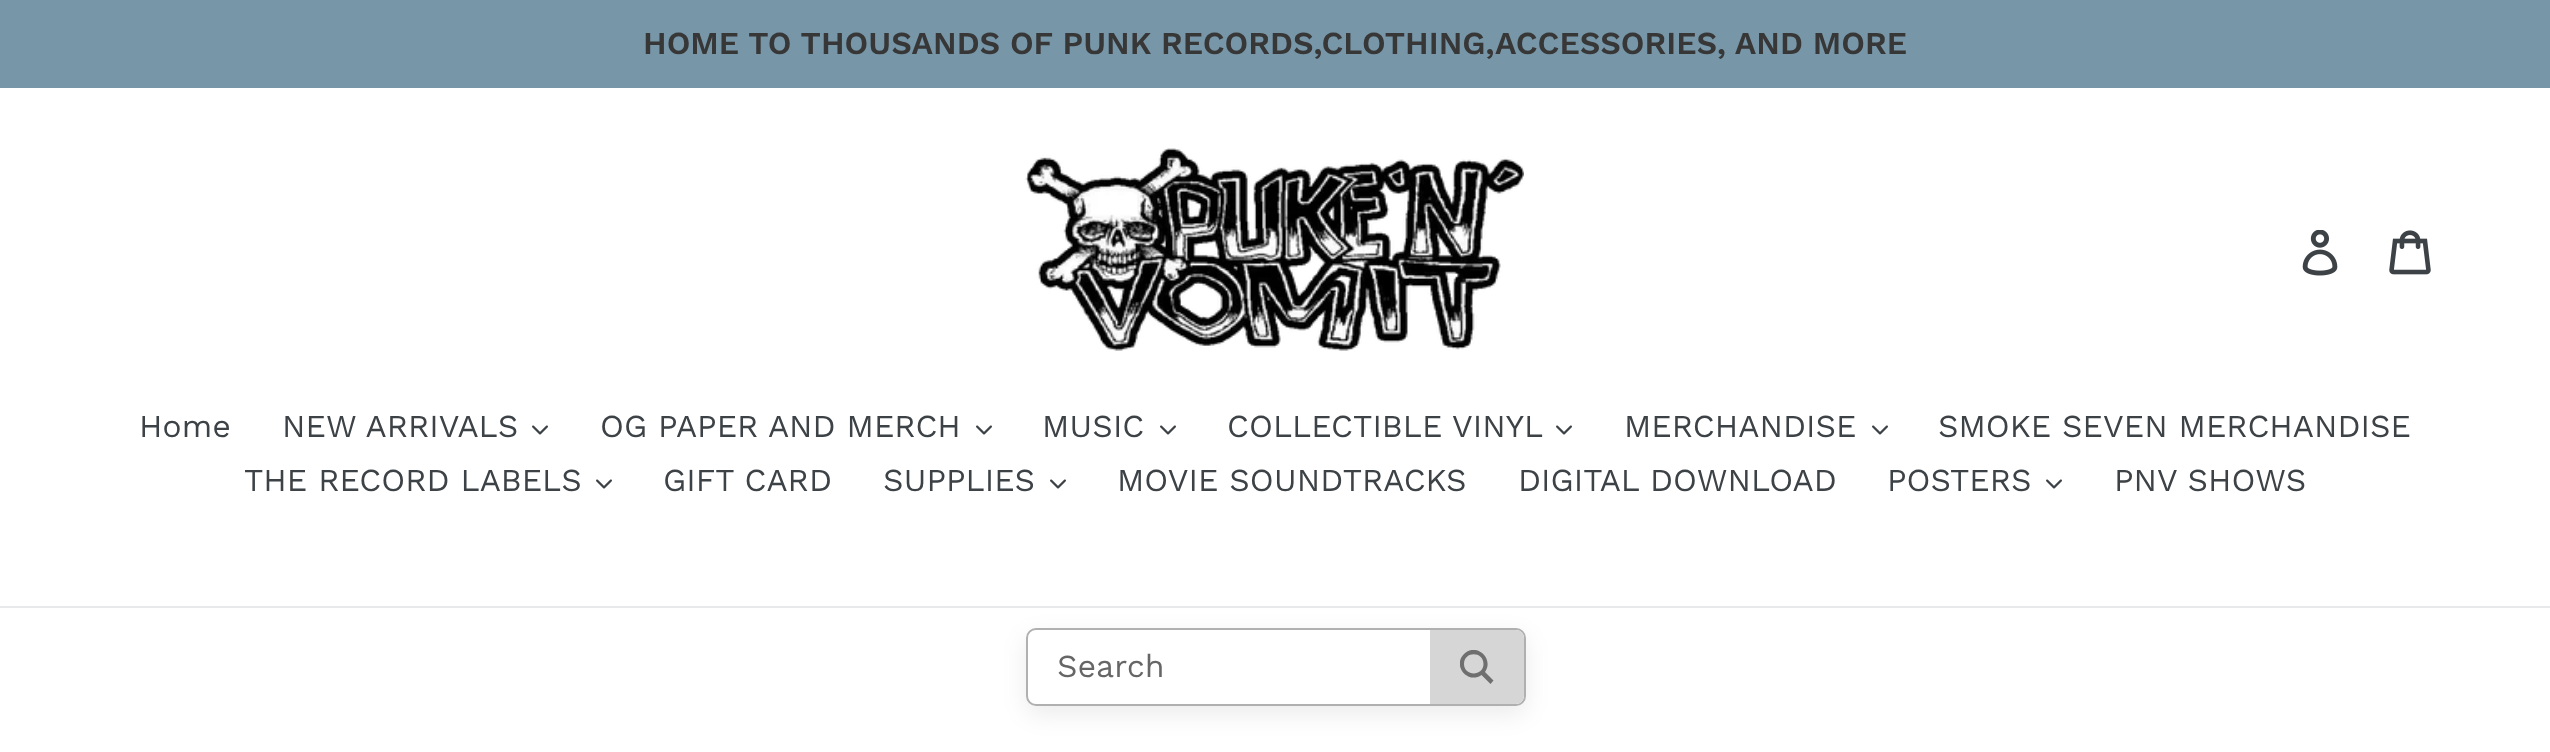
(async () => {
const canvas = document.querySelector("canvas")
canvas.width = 2550
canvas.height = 752
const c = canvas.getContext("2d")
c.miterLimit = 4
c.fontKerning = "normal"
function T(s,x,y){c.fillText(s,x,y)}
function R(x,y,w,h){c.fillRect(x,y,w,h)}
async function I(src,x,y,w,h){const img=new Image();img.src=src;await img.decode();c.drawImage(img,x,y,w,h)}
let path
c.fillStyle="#fff"
R(0,0,2550,752)
c.fillStyle="#7796a8"
R(0,0,2550,88)
c.font="600 32px Work Sans"
c.fillStyle="#373737"
T("HOME TO THOUSANDS OF PUNK RECORDS,CLOTHING,ACCESSORIES, AND MORE",643,54)
c.fillStyle="#e8e9eb"
R(0,606,2550,2)
c.font="32px Work Sans"
c.fillStyle="#3d4246"
T("Home",139,437)
T("NEW ARRIVALS",282,437)
await I("1.png",532,425,16,10)
T("OG PAPER AND MERCH",600,437)
await I("1.png",976,425,16,10)
T("MUSIC",1042,437)
await I("1.png",1160,425,16,10)
T("COLLECTIBLE VINYL",1227,437)
await I("1.png",1556,425,16,10)
T("MERCHANDISE",1624,437)
await I("1.png",1872,425,16,10)
T("SMOKE SEVEN MERCHANDISE",1938,437)
T("THE RECORD LABELS",244,491)
await I("1.png",596,479,16,10)
T("GIFT CARD",663,491)
T("SUPPLIES",883,491)
await I("1.png",1050,479,16,10)
T("MOVIE SOUNDTRACKS",1117,491)
T("DIGITAL DOWNLOAD",1518,491)
T("POSTERS",1887,491)
await I("1.png",2046,479,16,10)
T("PNV SHOWS",2114,491)
await I("2.png",1025,148,499,203)
await I("3.png",2302,230,36,46)
await I("4.png",2389,230,42,45)
c.fillStyle="#00000014"
c.filter="blur(12px)"
c.beginPath()
c.roundRect(1026,636,500,78,10)
c.fill()
c.filter="none"
c.fillStyle="#fff"
c.beginPath()
c.roundRect(1027,629,498,76,9)
c.fill()
c.strokeStyle="#b0b0b0"
c.lineWidth=2
c.stroke()
c.fillStyle="#666"
T("Search",1057,677)
c.fillStyle="#d6d6d6"
c.beginPath()
c.roundRect(1430,630,94,74,[0,8,8,0])
c.fill()
c.save()
c.beginPath()
c.rect(1460,650,34,34)
c.clip()
c.fillStyle="#6f6f6f"
path = new Path2D("M1493.5 680.5l-8.5-8.5c9.5-13.5-9-30-21-18c-12 12 4 30.5 17.5 21l9 9zm-29.5-16.5c0-13 19.5-13 19.5 0c0 12.5-19.5 12.5-19.5 0z")
c.fill(path)
c.restore()
})()
